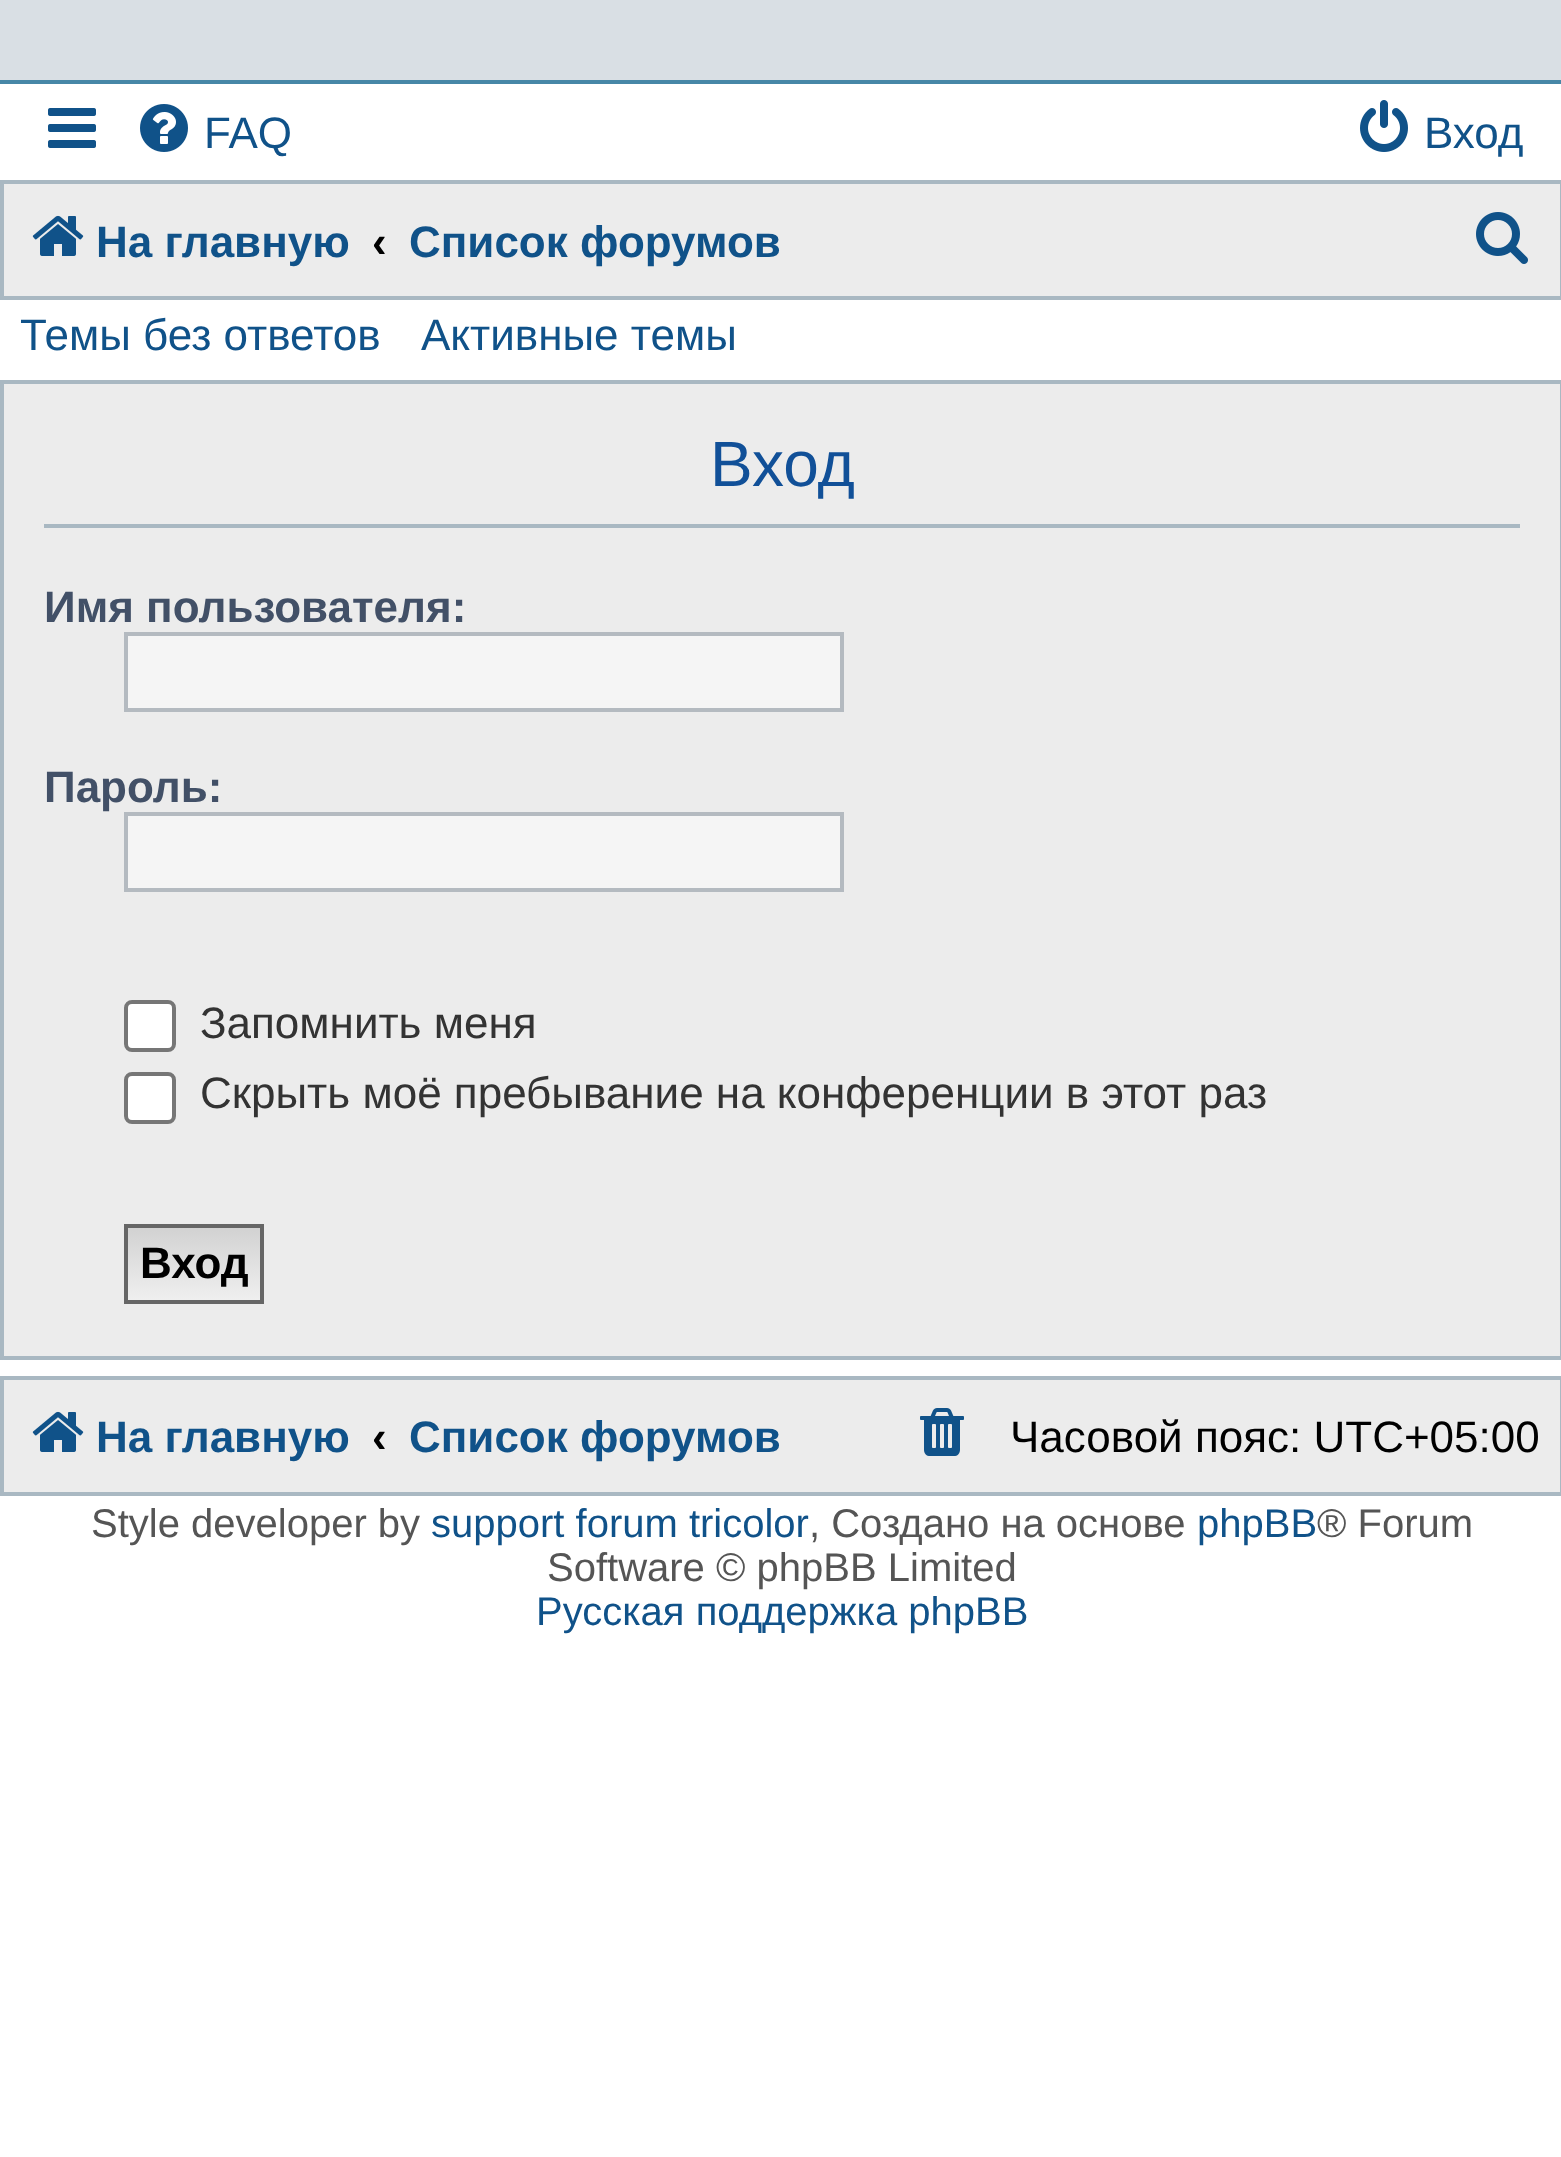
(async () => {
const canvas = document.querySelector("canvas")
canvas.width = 1561
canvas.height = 2157
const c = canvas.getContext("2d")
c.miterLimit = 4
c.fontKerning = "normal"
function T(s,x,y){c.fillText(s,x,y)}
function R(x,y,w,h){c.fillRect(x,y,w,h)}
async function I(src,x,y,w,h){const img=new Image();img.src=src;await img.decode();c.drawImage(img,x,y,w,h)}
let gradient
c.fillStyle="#fff"
R(0,0,1561,2157)
c.fillStyle="#d9dfe4"
R(0,0,1561,80)
c.fillStyle="#4787a7"
R(0,80,1561,4)
await I("1.png",48,108,48,40)
await I("2.png",140,104,48,48)
c.font="44px Liberation Sans"
c.fillStyle="#105289"
T("FAQ",204,148)
await I("3.png",1360,100,48,52)
T("Вход",1424,148)
c.fillStyle="#ececec"
c.beginPath()
c.rect(2,182,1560,116)
c.fill()
c.strokeStyle="#a9b8c2"
c.lineWidth=4
c.stroke()
await I("4.png",32,215,52,41)
c.font="bold 44px Liberation Sans"
c.fillStyle="#105289"
T("На главную",96,257)
c.fillStyle="#000"
T("‹",372,257)
c.fillStyle="#105289"
T("Список форумов",409,257)
await I("5.png",1476,212,52,52)
c.font="44px Liberation Sans"
T("Темы без ответов",20,350)
T("Активные темы",421,350)
c.fillStyle="#ececec"
c.beginPath()
c.rect(2,382,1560,976)
c.fill()
c.stroke()
c.fillStyle="#a9b8c2"
R(44,524,1476,4)
c.font="64px Liberation Sans"
c.fillStyle="#115098"
T("Вход",710,486)
c.font="bold 44px Liberation Sans"
c.fillStyle="#425067"
T("Имя пользователя:",44,622)
c.fillStyle="#f5f5f5"
c.beginPath()
c.rect(126,634,716,76)
c.fill()
c.strokeStyle="#b4bac0"
c.stroke()
c.fillStyle="#425067"
T("Пароль:",44,802)
c.fillStyle="#f5f5f5"
c.beginPath()
c.rect(126,814,716,76)
c.fill()
c.stroke()
c.fillStyle="#fff"
c.beginPath()
c.roundRect(126,1002,48,48,6)
c.fill()
c.strokeStyle="#767676"
c.stroke()
c.font="44px Liberation Sans"
c.fillStyle="#333"
T("Запомнить меня",200,1038)
c.fillStyle="#fff"
c.beginPath()
c.roundRect(126,1074,48,48,6)
c.fill()
c.stroke()
c.fillStyle="#333"
T("Скрыть моё пребывание на конференции в этот раз",200,1108)
gradient = c.createLinearGradient(194,1228,194,1300)
gradient.addColorStop(0,"#d2d2d2")
gradient.addColorStop(1,"#efefef")
c.fillStyle = gradient
R(128,1228,132,72)
c.strokeStyle="#666"
c.strokeRect(126,1226,136,76)
c.font="bold 44px Liberation Sans"
c.fillStyle="#000"
T("Вход",140,1278)
c.fillStyle="#ececec"
c.beginPath()
c.rect(2,1378,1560,116)
c.fill()
c.strokeStyle="#a9b8c2"
c.stroke()
await I("4.png",32,1411,52,41)
c.fillStyle="#105289"
T("На главную",96,1452)
c.fillStyle="#000"
T("‹",372,1452)
c.fillStyle="#105289"
T("Список форумов",409,1452)
await I("6.png",920,1408,44,48)
c.font="44px Liberation Sans"
c.fillStyle="#000"
T("Часовой пояс: UTC+05:00",1010,1452)
c.font="40px Liberation Sans"
c.fillStyle="#555"
T("Style developer by",91,1537)
c.fillStyle="#105289"
T("support forum tricolor",431,1537)
c.fillStyle="#555"
T(", Создано на основе",809,1537)
c.fillStyle="#105289"
T("phpBB",1197,1537)
c.fillStyle="#555"
T("® Forum",1317,1537)
T("Software © phpBB Limited",547,1581)
c.fillStyle="#105289"
T("Русская поддержка phpBB",536,1625)
})()
